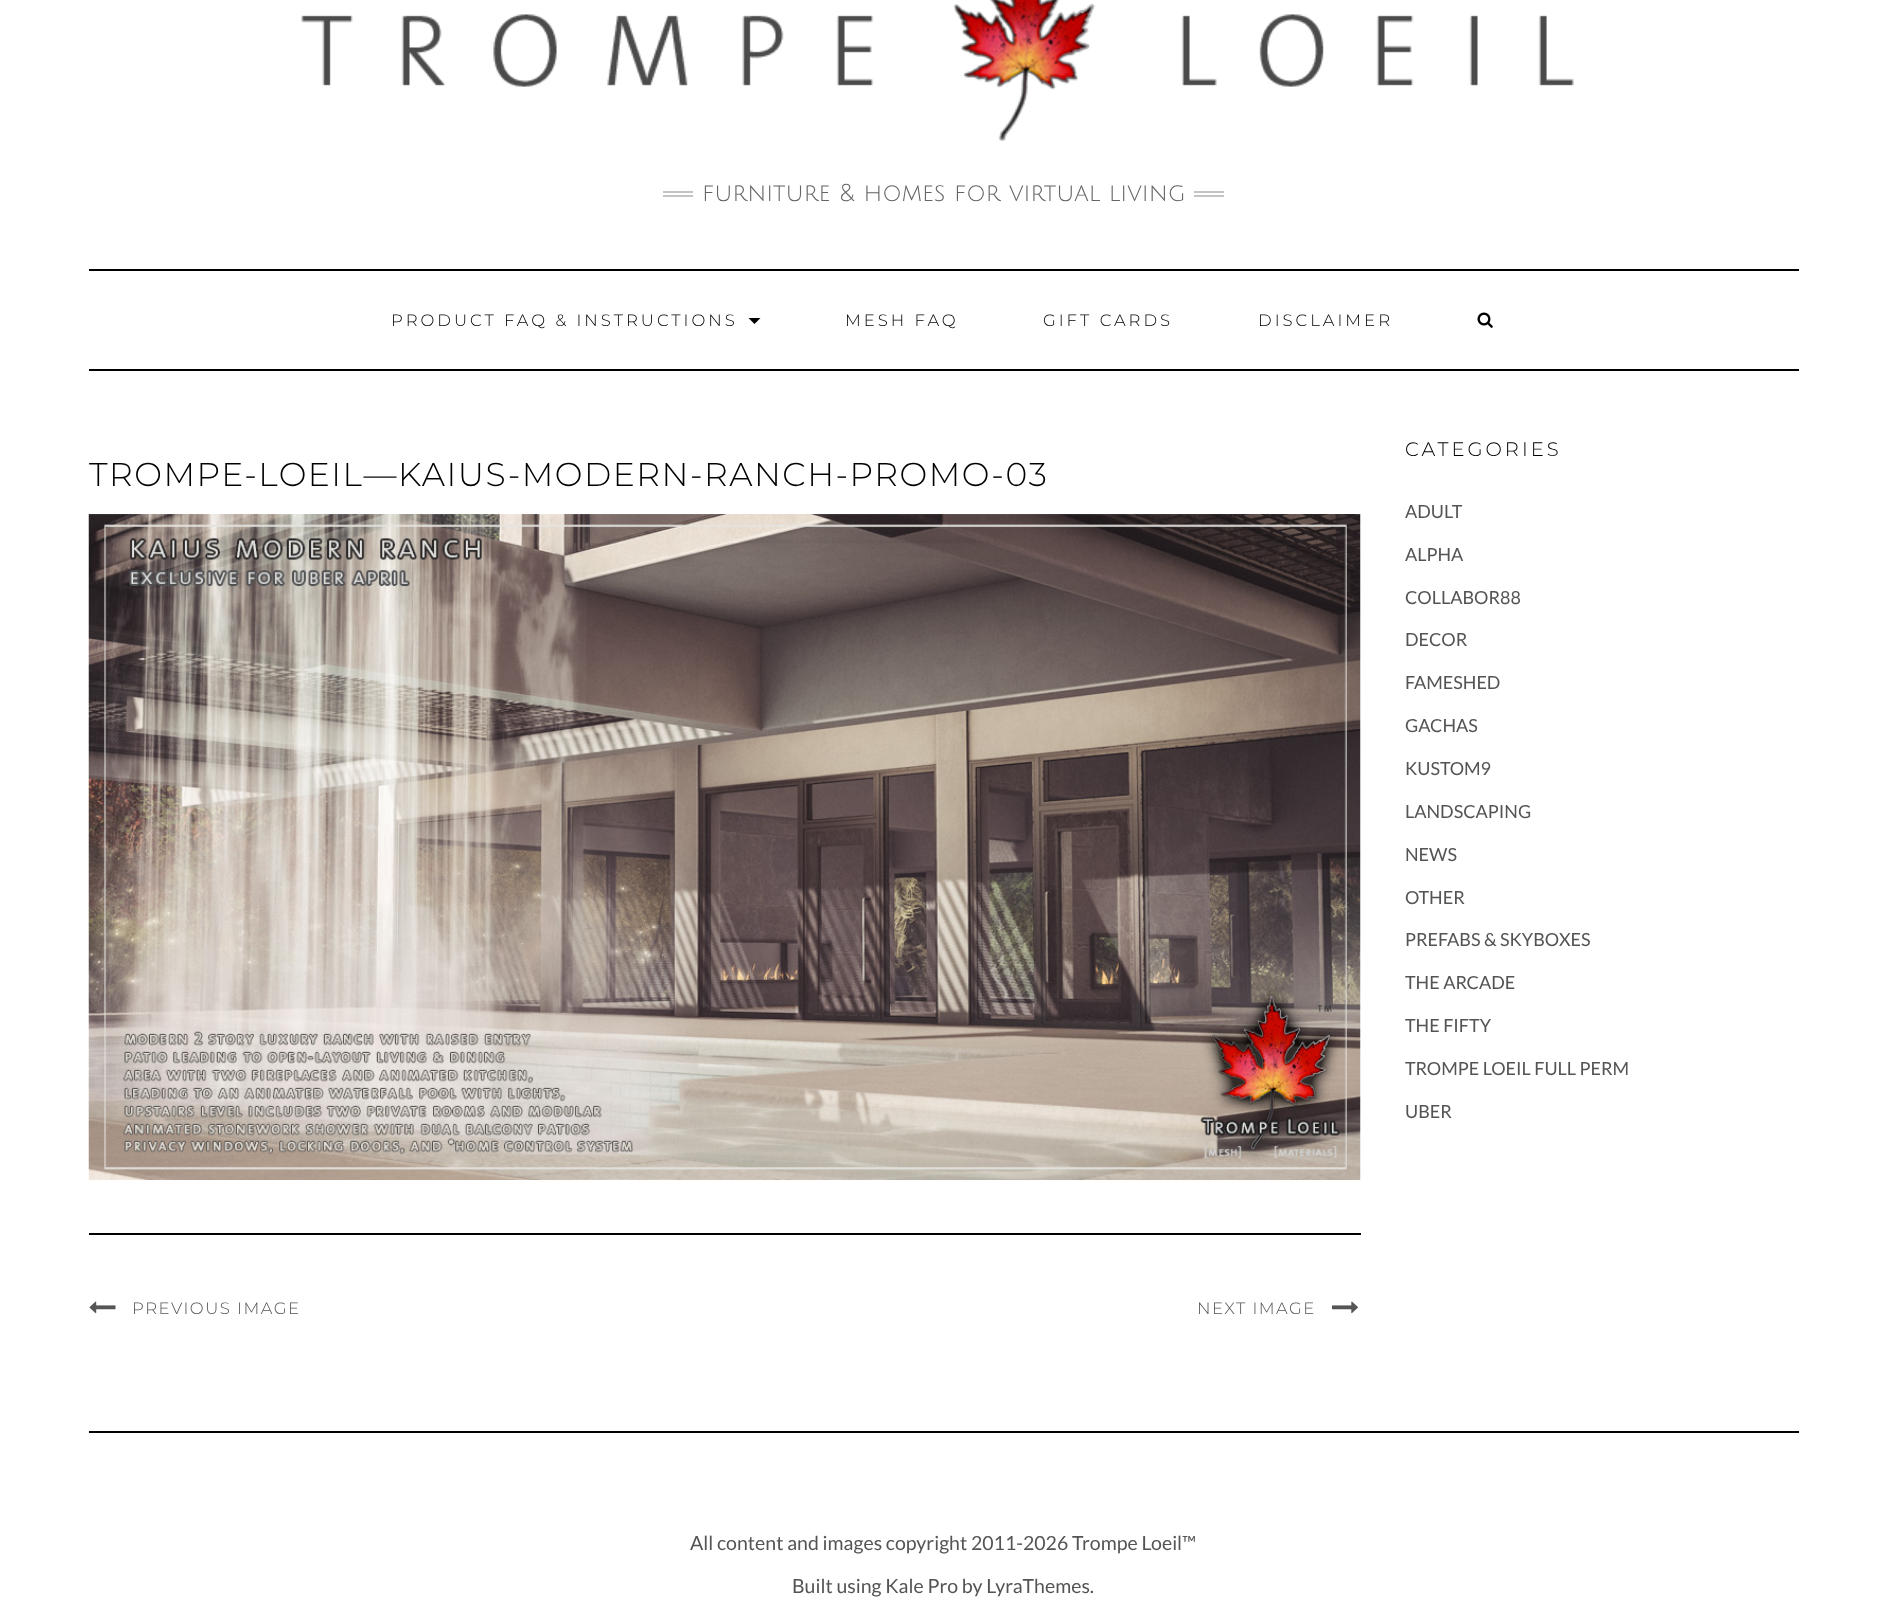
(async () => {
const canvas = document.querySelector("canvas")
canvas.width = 1887
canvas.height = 1602
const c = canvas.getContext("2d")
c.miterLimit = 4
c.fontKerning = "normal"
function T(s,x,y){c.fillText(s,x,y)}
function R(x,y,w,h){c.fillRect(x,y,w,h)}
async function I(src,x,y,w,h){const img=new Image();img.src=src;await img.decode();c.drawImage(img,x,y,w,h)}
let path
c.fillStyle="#fff"
R(0,0,1887,1602)
await I("1.png",301,0,1273,141)
c.fillStyle="#c4c4c4"
R(663,191,30,2)
R(663,195,30,2)
c.font="24px Julius Sans One"
c.fillStyle="#646464"
T("furniture & homes for virtual living",702,201)
c.fillStyle="#c4c4c4"
R(1194,191,30,2)
R(1194,195,30,2)
c.fillStyle="#000"
R(89,269,1710,2)
R(89,369,1710,2)
c.letterSpacing="3px"
c.font="100 16.5px Montserrat"
T("PRODUCT FAQ & INSTRUCTIONS",391,326)
path = new Path2D("M748.5 318h12l-6 6z")
c.fill(path)
T("MESH FAQ",845,326)
T("GIFT CARDS",1043,326)
T("DISCLAIMER",1258,326)
await I("2.png",1477,312,16,16)
c.letterSpacing="1.5px"
c.font="100 33px Montserrat"
T("TROMPE-LOEIL—KAIUS-MODERN-RANCH-PROMO-03",89,486)
await I("3.png",88,514,1273,666)
R(89,1233,1272,2)
await I("4.png",89,1301,27,13)
c.font="100 16.5px Montserrat"
c.fillStyle="#545454"
T("PREVIOUS IMAGE",132,1314)
T("NEXT IMAGE",1197,1314)
await I("5.png",1332,1301,26,13)
c.letterSpacing="3px"
c.font="100 19.5px Montserrat"
c.fillStyle="#000"
T("CATEGORIES",1405,456)
c.letterSpacing="0px"
c.font="18px Lato"
c.fillStyle="#545454"
T("ADULT",1405,518)
T("ALPHA",1405,561)
T("COLLABOR88",1405,604)
T("DECOR",1405,646)
T("FAMESHED",1405,689)
T("GACHAS",1405,732)
T("KUSTOM9",1405,775)
T("LANDSCAPING",1405,818)
T("NEWS",1405,861)
T("OTHER",1405,904)
T("PREFABS & SKYBOXES",1405,946)
T("THE ARCADE",1405,989)
T("THE FIFTY",1405,1032)
T("TROMPE LOEIL FULL PERM",1405,1075)
T("UBER",1405,1118)
c.fillStyle="#000"
R(89,1431,1710,2)
c.font="19.5px Lato"
c.fillStyle="#545454"
T("All content and images copyright 2011-2026 Trompe Loeil™",690,1550)
T("Built using Kale Pro by LyraThemes.",792,1593)
})()
